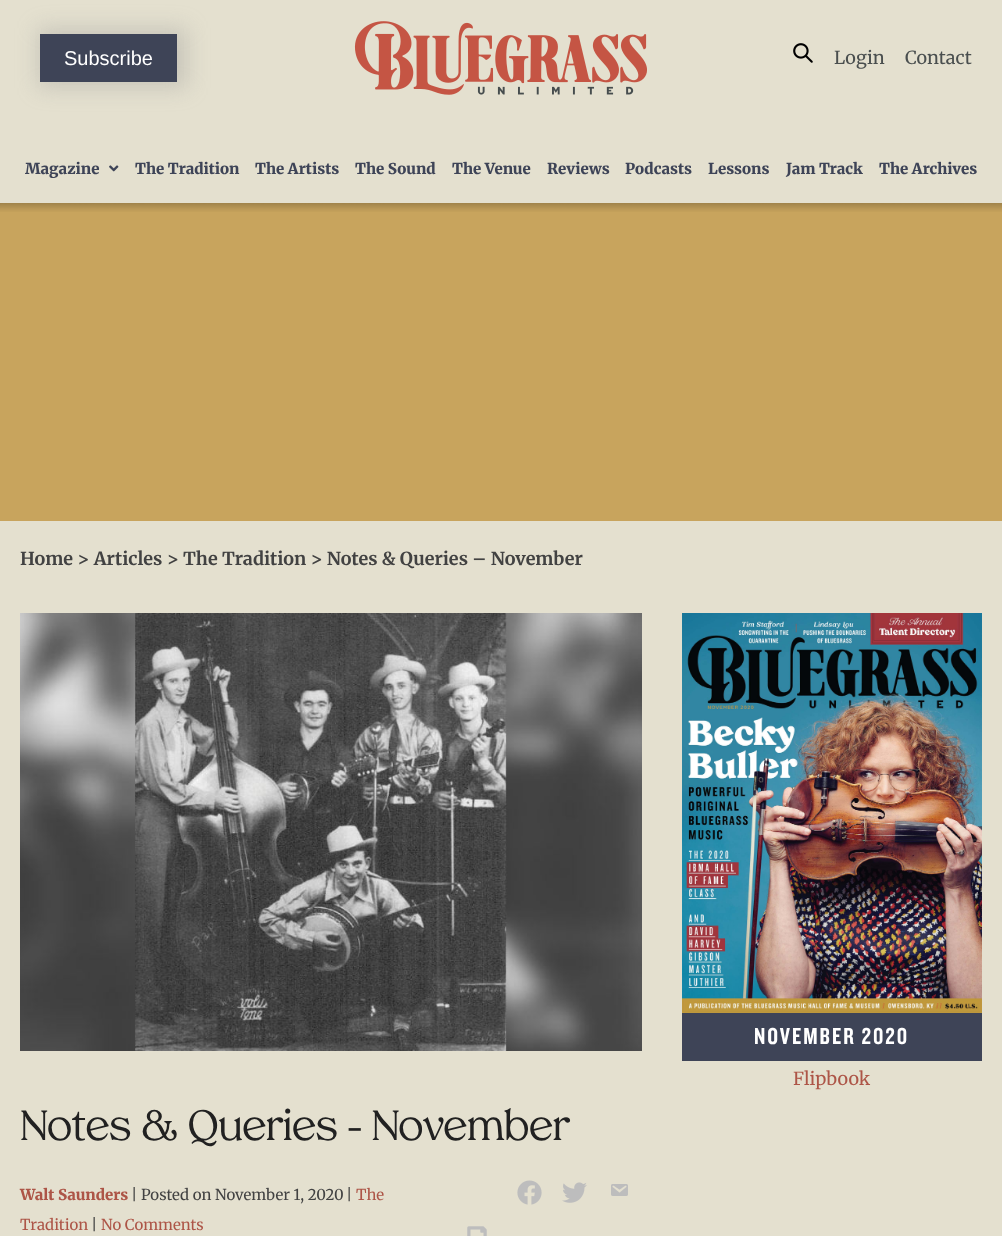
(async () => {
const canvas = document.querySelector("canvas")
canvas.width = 1002
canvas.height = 1236
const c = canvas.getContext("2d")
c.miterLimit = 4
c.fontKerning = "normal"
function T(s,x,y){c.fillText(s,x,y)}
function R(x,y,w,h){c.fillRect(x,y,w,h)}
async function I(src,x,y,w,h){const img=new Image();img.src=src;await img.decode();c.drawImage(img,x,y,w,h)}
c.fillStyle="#e4e0cf"
R(0,0,1002,1236)
c.fillStyle="#93939357"
c.filter="blur(10.5px)"
c.beginPath()
c.rect(38,28,149,60)
c.fill()
c.filter="none"
c.fillStyle="#3e4457"
R(40,34,137,48)
c.font="20px Liberation Sans"
c.fillStyle="#fff"
T("Subscribe",64,65)
await I("1.png",354,21,293,74)
await I("2.png",793,43,20,20)
c.font="18px Merriweather"
c.fillStyle="#4a4f4f"
T("Login",834,64)
T("Contact",905,64)
c.font="900 15px Merriweather"
c.fillStyle="#3e4457"
T("Magazine",25,174)
await I("3.png",109,165,10,7)
T("The Tradition",135,174)
T("The Artists",255,174)
T("The Sound",355,174)
T("The Venue",452,174)
T("Reviews",547,174)
T("Podcasts",625,174)
T("Lessons",708,174)
T("Jam Track",786,174)
T("The Archives",879,174)
c.fillStyle="#c8a45d"
R(0,203,1002,318)
await I("4.png",0,203,1002,9)
c.font="bold 18px Merriweather"
c.fillStyle="#424242"
T("Home > Articles > The Tradition > Notes & Queries – November",20,565)
await I("5.png",682,613,300,400)
c.fillStyle="#3e4457"
R(682,1013,300,48)
c.letterSpacing="2px"
c.font="500 24px 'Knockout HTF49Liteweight'"
c.fillStyle="#fff"
T("NOVEMBER 2020",754,1044)
c.letterSpacing="0px"
c.font="18px Merriweather"
c.fillStyle="#ad5547"
T("Flipbook",793,1085)
await I("6.png",20,613,622,438)
c.letterSpacing="-1px"
c.font="42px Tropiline"
c.fillStyle="#212121"
T("Notes & Queries – November",20,1140)
c.letterSpacing="0px"
c.font="900 15px Merriweather"
c.fillStyle="#ad5547"
T("Walt Saunders",20,1200)
c.font="15px Merriweather"
c.fillStyle="#424242"
T("|",131,1200)
T("Posted on November 1, 2020",141,1200)
T("|",346,1200)
c.fillStyle="#ad5547"
T("The",356,1200)
T("Tradition",20,1230)
c.fillStyle="#424242"
T("|",91,1230)
c.fillStyle="#ad5547"
T("No Comments",101,1230)
await I("7.png",517,1180,25,25)
await I("8.png",562,1182,25,21)
await I("9.png",611,1184,17,12)
await I("10.png",467,1226,20,10)
})()
